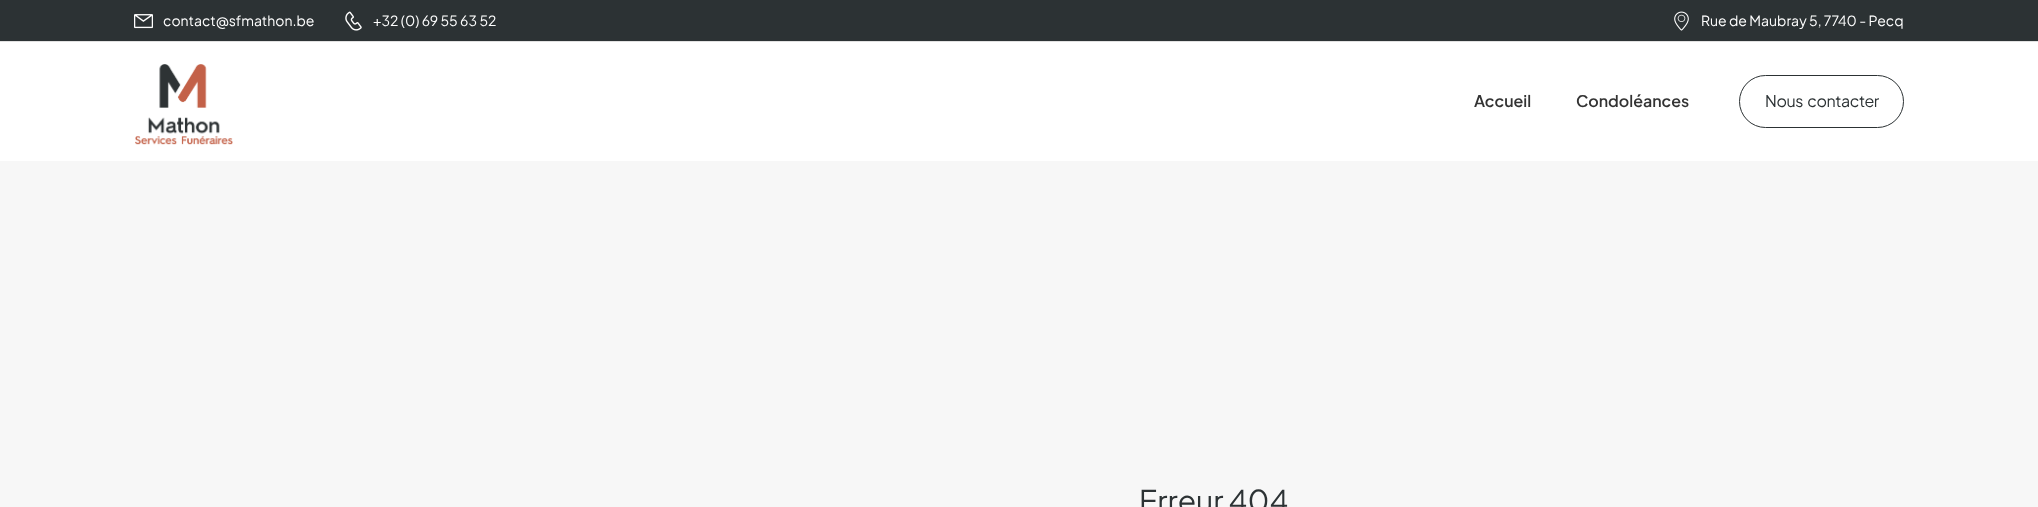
(async () => {
const canvas = document.querySelector("canvas")
canvas.width = 2038
canvas.height = 507
const c = canvas.getContext("2d")
c.miterLimit = 4
c.fontKerning = "normal"
function T(s,x,y){c.fillText(s,x,y)}
function R(x,y,w,h){c.fillRect(x,y,w,h)}
async function I(src,x,y,w,h){const img=new Image();img.src=src;await img.decode();c.drawImage(img,x,y,w,h)}
c.fillStyle="#fff"
R(0,0,2038,507)
c.fillStyle="#2c3234"
R(0,0,2038,41)
c.fillStyle="#e1e1e1"
R(0,41,2038,1)
await I("1.png",134,14,19,15)
c.font="14px Plus Jakarta Sans"
c.fillStyle="#fff"
T("contact@sfmathon.be",163,26)
await I("2.png",345,11,17,20)
T("+32 (0) 69 55 63 52",373,26)
await I("3.png",1674,11,15,20)
T("Rue de Maubray 5, 7740 - Pecq",1701,26)
await I("4.png",135,64,98,81)
c.font="600 16px Plus Jakarta Sans"
c.fillStyle="#333"
T("Accueil",1474,107)
T("Condoléances",1576,107)
c.beginPath()
c.roundRect(1739.5,75.5,164,52,26)
c.strokeStyle="#2c3234"
c.stroke()
c.letterSpacing="-0.4px"
c.wordSpacing="2px"
c.font="16px Plus Jakarta Sans"
c.fillStyle="#2c3234"
T("Nous contacter",1765,107)
c.fillStyle="#f7f7f7"
R(0,161,2038,346)
c.letterSpacing="0px"
c.wordSpacing="0px"
c.font="30px Plus Jakarta Sans"
c.fillStyle="#2c3234"
T("Erreur 404",1139,512)
})()
